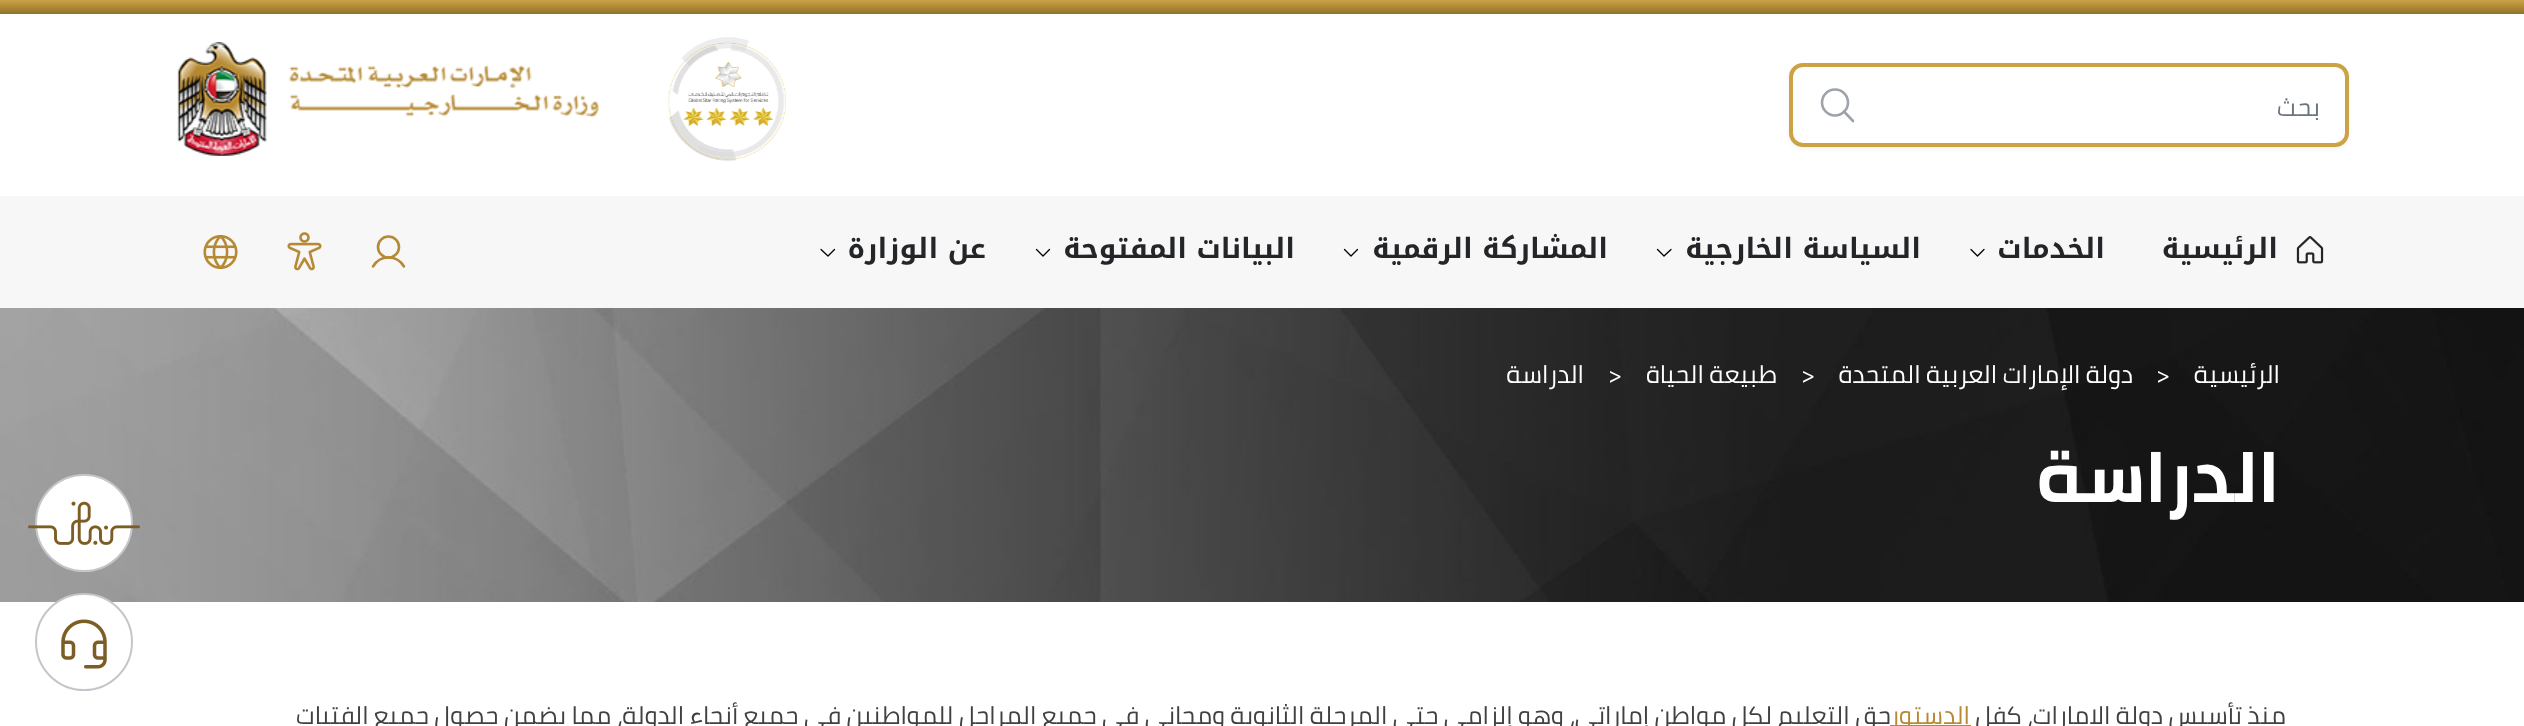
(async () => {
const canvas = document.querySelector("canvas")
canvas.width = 2524
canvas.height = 726
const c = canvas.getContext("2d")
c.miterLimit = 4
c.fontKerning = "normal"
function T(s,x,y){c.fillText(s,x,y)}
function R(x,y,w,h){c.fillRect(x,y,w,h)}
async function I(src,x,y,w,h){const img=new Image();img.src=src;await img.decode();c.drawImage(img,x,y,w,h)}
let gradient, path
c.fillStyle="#fff"
R(0,0,2524,726)
gradient = c.createLinearGradient(1263,0,1263,14)
gradient.addColorStop(0,"#cba344")
gradient.addColorStop(1,"#92722a")
c.fillStyle = gradient
R(0,0,2524,14)
c.fillStyle="#0000000d"
c.filter="blur(2px)"
c.beginPath()
c.roundRect(1789,65,560,84,14)
c.fill()
c.filter="none"
c.fillStyle="#fff"
c.beginPath()
c.roundRect(1791,65,556,80,12)
c.fill()
c.strokeStyle="#cba344"
c.lineWidth=4
c.stroke()
c.direction="rtl"
c.font="25px Cairo"
c.fillStyle="#6b7280"
T("بحث",2320,116)
c.beginPath()
c.arc(1835,102.5,13,0,7)
c.strokeStyle="#9ea2a9"
c.lineWidth=2.6
c.stroke()
path = new Path2D("M1844 111.5l9 9.5")
c.lineCap="round"
c.lineJoin="round"
c.stroke(path)
await I("1.png",667,37,119,124)
await I("2.png",177,42,422,114)
c.fillStyle="#f7f7f7"
R(0,196,2524,112)
await I("3.png",2296,236,28,28)
c.font="bold 28px Noto Kufi Arabic"
c.fillStyle="#232528"
T("الرئيسية",2278,258)
T("الخدمات",2105,258)
path = new Path2D("M1984 249.5l-6.5 6.5l-6.5-6.5")
c.strokeStyle="#000"
c.lineWidth=1.3
c.stroke(path)
T("السياسة الخارجية",1921,258)
path = new Path2D("M1671 249.5l-7 6.5l-6.5-6.5")
c.stroke(path)
T("المشاركة الرقمية",1608,258)
path = new Path2D("M1357.5 249.5l-6.5 6.5l-6.5-6.5")
c.stroke(path)
T("البيانات المفتوحة",1295,258)
path = new Path2D("M1049.5 249.5l-6.5 6.5l-6.5-6.5")
c.stroke(path)
T("عن الوزارة",986,258)
path = new Path2D("M834.5 249.5l-6.5 6.5l-7-6.5")
c.stroke(path)
c.beginPath()
c.arc(388.5,247,10.5,0,7)
c.strokeStyle="#b68a35"
c.lineWidth=2.6
c.stroke()
path = new Path2D("M373 266.5c7-12 24-12 31 0")
c.stroke(path)
await I("4.png",287,232,35,39)
await I("5.png",203,234,35,36)
await I("6.png",0,308,2524,294)
c.font="24.9px Cairo"
c.fillStyle="#fff"
T("الرئيسية",2280,383)
c.direction="ltr"
T(">",2156,383)
c.direction="rtl"
T("دولة الإمارات العربية المتحدة",2133,383)
c.direction="ltr"
T(">",1801,383)
c.direction="rtl"
T("طبيعة الحياة",1777,383)
c.direction="ltr"
T(">",1608,383)
c.direction="rtl"
T("الدراسة",1584,383)
c.font="bold 71.5px Cairo"
T("الدراسة",2280,502)
c.font="24.9px Cairo"
c.fillStyle="#414141"
T("منذ تأسيس دولة الإمارات، كفل",2286,724)
c.fillStyle="#b68a35"
R(1890,725,81,1)
T("الدستور",1970,724)
c.fillStyle="#414141"
T("حق التعليم لكل مواطن إماراتي، وهو إلزامي حتى المرحلة الثانوية ومجاني في جميع المراحل للمواطنين في جميع أنحاء الدولة، مما يضمن حصول جميع الفتيات",1891,724)
c.fillStyle="#fff"
c.beginPath()
c.arc(84,523,48,0,7)
c.fill()
c.strokeStyle="#c3c6cb"
c.lineWidth=2
c.stroke()
await I("7.png",28,501,112,44)
c.beginPath()
c.arc(84,642,48,0,7)
c.fill()
c.stroke()
await I("8.png",61,619,46,50)
})()
